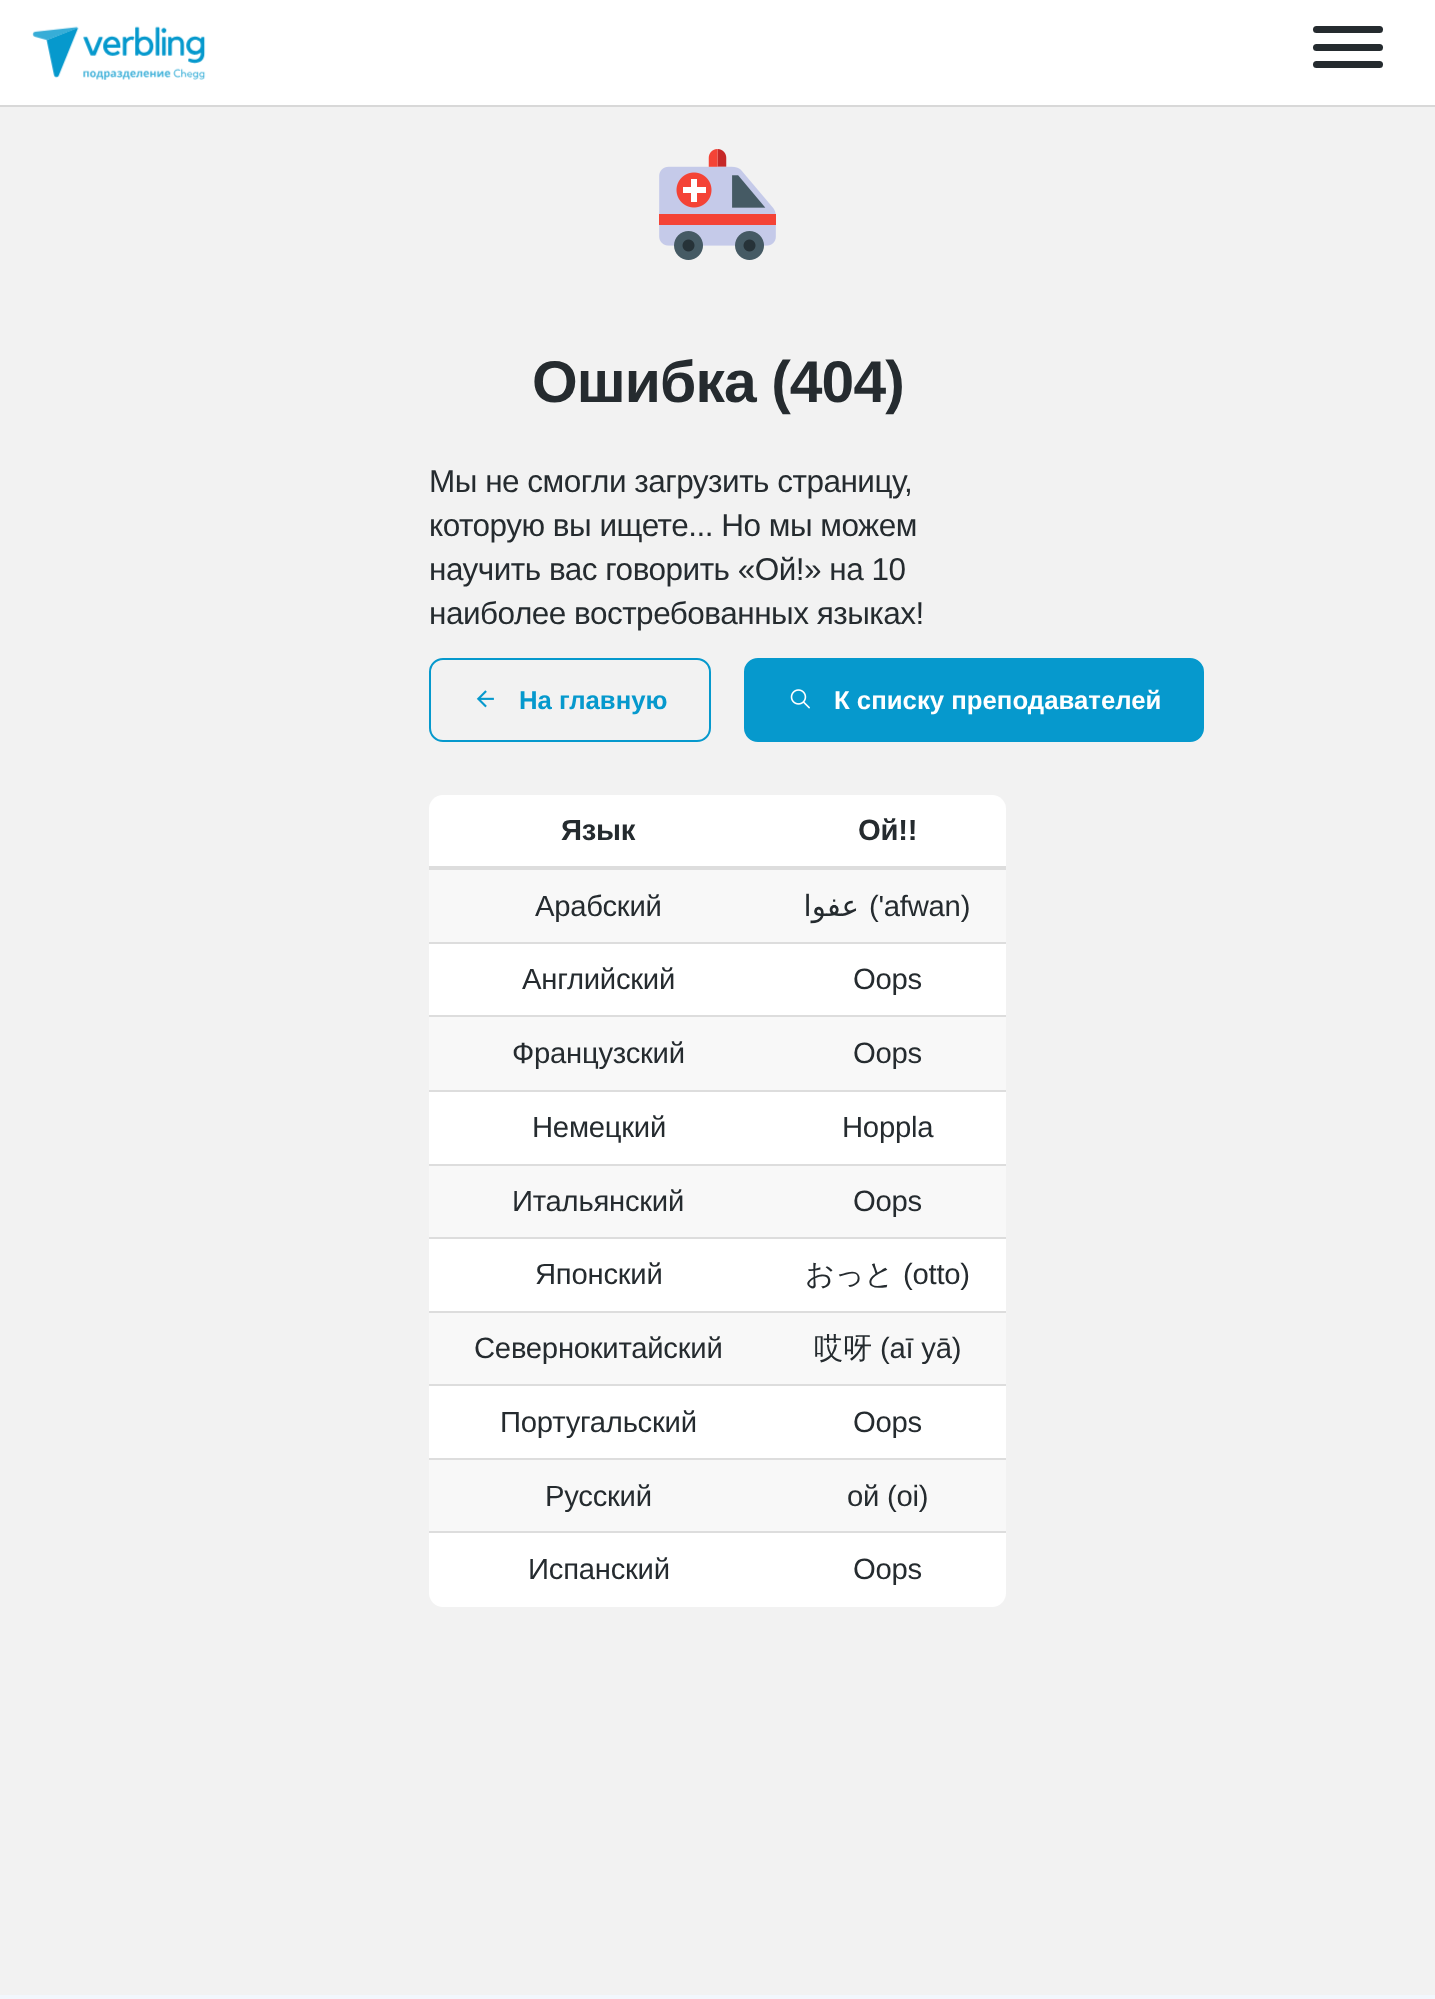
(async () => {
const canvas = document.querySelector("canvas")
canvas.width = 1435
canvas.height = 1999
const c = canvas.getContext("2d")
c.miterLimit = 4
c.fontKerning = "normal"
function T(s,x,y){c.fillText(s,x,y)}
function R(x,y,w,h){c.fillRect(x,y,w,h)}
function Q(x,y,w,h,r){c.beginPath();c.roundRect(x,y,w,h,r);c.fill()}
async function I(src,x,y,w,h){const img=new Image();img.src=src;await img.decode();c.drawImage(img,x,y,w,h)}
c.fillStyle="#f2f2f2"
R(0,0,1435,1999)
c.fillStyle="#fff"
R(0,0,1435,105)
c.fillStyle="#d8d8d8"
R(0,105,1435,2)
await I("1.png",32,26,174,54)
c.fillStyle="#252b2f"
Q(1313,44,70,7,3.5)
Q(1313,26,70,7,3.5)
Q(1313,61,70,7,3.5)
await I("2.png",659,149,117,111)
c.letterSpacing="-0.9px"
c.font="bold 58.75px Liberation Sans"
T("Ошибка (404)",532,402)
c.letterSpacing="-0.5px"
c.font="31.5px Liberation Sans"
T("Мы не смогли загрузить страницу,",429,492)
T("которую вы ищете... Но мы можем",429,536)
T("научить вас говорить «Ой!» на 10",429,580)
T("наиболее востребованных языках!",429,624)
c.beginPath()
c.roundRect(430,659,280,82,13)
c.strokeStyle="#0699cd"
c.lineWidth=2
c.stroke()
await I("3.png",476,690,18,18)
c.letterSpacing="0px"
c.font="bold 25.75px Liberation Sans"
c.fillStyle="#0699cd"
T("На главную",519,709)
c.beginPath()
c.roundRect(745,659,458,82,13)
c.fill()
c.stroke()
await I("4.png",790,689,20,20)
c.fillStyle="#fff"
T("К списку преподавателей",834,709)
c.beginPath()
c.roundRect(429,795,577,73,[14,14,0,0])
c.fill()
c.letterSpacing="-0.25px"
c.font="bold 29.25px Liberation Sans"
c.fillStyle="#252b2f"
T("Язык",561,840)
c.fillStyle="#ddd"
R(429,866,577,4)
c.fillStyle="#252b2f"
T("Ой!!",858,840)
c.fillStyle="#f8f8f8"
R(429,870,577,72)
c.font="29.25px Liberation Sans"
c.fillStyle="#252b2f"
T("Арабский",535,916)
c.direction="rtl"
c.font="29.25px DejaVu Sans"
T("عفوا",859,916)
c.direction="ltr"
c.font="29.25px Liberation Sans"
T("('afwan)",869,916)
c.fillStyle="#fff"
R(429,944,577,71)
c.fillStyle="#252b2f"
T("Английский",522,989)
c.fillStyle="#ddd"
R(429,942,577,2)
c.fillStyle="#252b2f"
T("Oops",853,989)
c.fillStyle="#f8f8f8"
R(429,1017,577,73)
c.fillStyle="#252b2f"
T("Французский",512,1063)
c.fillStyle="#ddd"
R(429,1015,577,2)
c.fillStyle="#252b2f"
T("Oops",853,1063)
c.fillStyle="#fff"
R(429,1092,577,72)
c.fillStyle="#252b2f"
T("Немецкий",532,1137)
c.fillStyle="#ddd"
R(429,1090,577,2)
c.fillStyle="#252b2f"
T("Hoppla",842,1137)
c.fillStyle="#f8f8f8"
R(429,1166,577,71)
c.fillStyle="#252b2f"
T("Итальянский",512,1211)
c.fillStyle="#ddd"
R(429,1164,577,2)
c.fillStyle="#252b2f"
T("Oops",853,1211)
c.fillStyle="#fff"
R(429,1239,577,72)
c.fillStyle="#252b2f"
T("Японский",535,1284)
c.fillStyle="#ddd"
R(429,1237,577,2)
c.font="500 29.25px WenQuanYi Zen Hei"
c.fillStyle="#252b2f"
T("おっと",805,1284)
c.font="29.25px Liberation Sans"
T("(otto)",903,1284)
c.fillStyle="#f8f8f8"
R(429,1313,577,71)
c.fillStyle="#252b2f"
T("Севернокитайский",474,1358)
c.fillStyle="#ddd"
R(429,1311,577,2)
c.font="500 29.25px WenQuanYi Zen Hei"
c.fillStyle="#252b2f"
T("哎呀",814,1358)
c.font="29.25px Liberation Sans"
T("(aī yā)",880,1358)
c.fillStyle="#fff"
R(429,1386,577,72)
c.fillStyle="#252b2f"
T("Португальский",500,1432)
c.fillStyle="#ddd"
R(429,1384,577,2)
c.fillStyle="#252b2f"
T("Oops",853,1432)
c.fillStyle="#f8f8f8"
R(429,1460,577,71)
c.fillStyle="#252b2f"
T("Русский",545,1506)
c.fillStyle="#ddd"
R(429,1458,577,2)
c.fillStyle="#252b2f"
T("ой (oi)",847,1506)
c.fillStyle="#fff"
c.beginPath()
c.roundRect(429,1533,577,74,[0,0,14,14])
c.fill()
c.fillStyle="#252b2f"
T("Испанский",528,1579)
c.fillStyle="#ddd"
R(429,1531,577,2)
c.fillStyle="#252b2f"
T("Oops",853,1579)
c.fillStyle="#f2f7fd"
R(0,1995,1435,4)
})()
